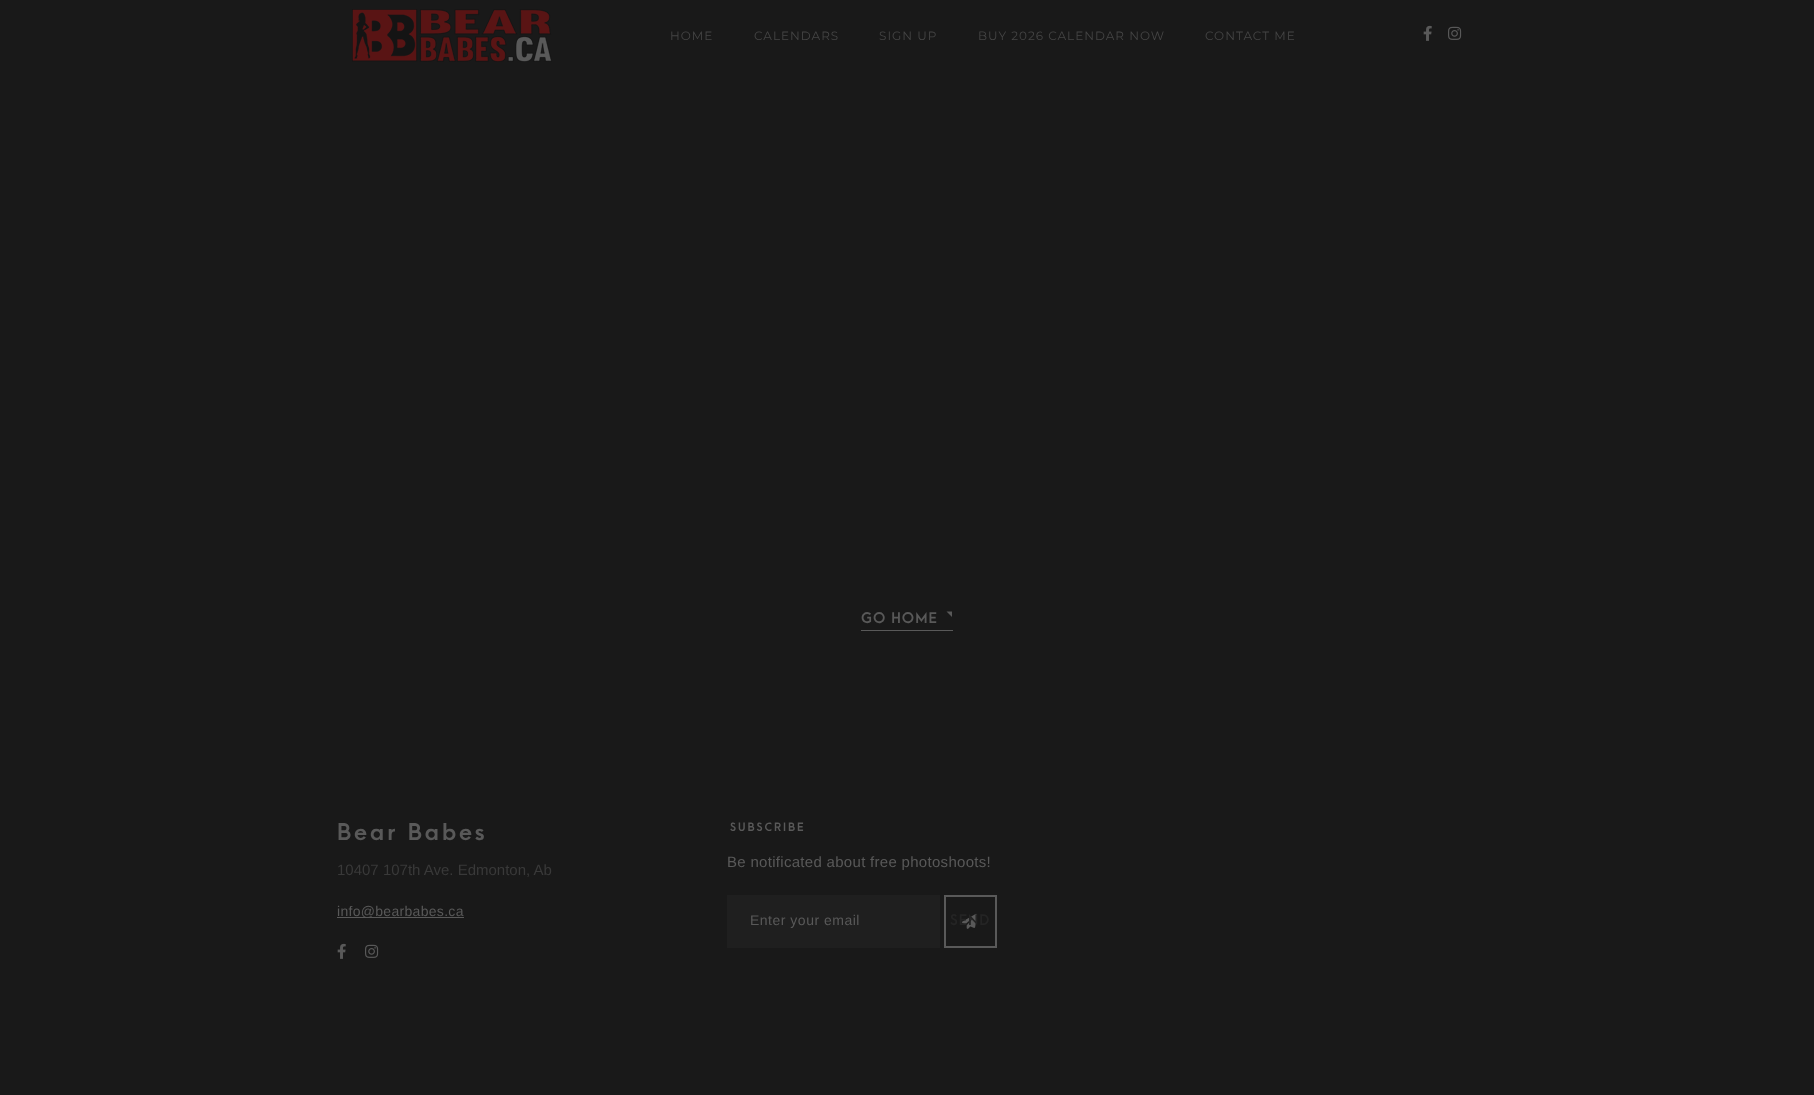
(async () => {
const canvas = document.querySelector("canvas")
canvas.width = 1814
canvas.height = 1095
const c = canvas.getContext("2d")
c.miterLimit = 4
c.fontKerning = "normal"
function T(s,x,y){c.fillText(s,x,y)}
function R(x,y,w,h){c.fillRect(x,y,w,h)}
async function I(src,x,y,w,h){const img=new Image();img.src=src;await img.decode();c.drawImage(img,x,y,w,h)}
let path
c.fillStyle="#191919"
R(0,0,1814,1095)
await I("1.png",352,9,200,53)
c.letterSpacing="1px"
c.font="100 12px Montserrat"
c.fillStyle="#454545"
T("HOME",670,40)
T("CALENDARS",754,40)
T("SIGN UP",879,40)
T("BUY 2026 CALENDAR NOW",978,40)
T("CONTACT ME",1205,40)
await I("2.png",1423,25,9,16)
await I("3.png",1448,26,14,14)
c.fillStyle="#595959"
R(861,630,92,1)
c.font="bold 14px 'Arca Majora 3'"
T("GO HOME",861,623)
path = new Path2D("M952 617l-5.5-5.5h5.5z")
c.fill(path)
c.letterSpacing="3px"
c.font="bold 22px 'Arca Majora 3'"
T("Bear Babes",337,840)
c.letterSpacing="0px"
c.font="15px Liberation Sans"
c.fillStyle="#393939"
T("10407 107th Ave. Edmonton, Ab",337,875)
c.fillStyle="#595959"
R(337,917,127,1)
c.letterSpacing="0.3px"
c.font="14px Liberation Sans"
T("info@bearbabes.ca",337,916)
await I("2.png",337,943,9,16)
await I("3.png",365,944,14,14)
c.letterSpacing="2px"
c.font="bold 11px 'Arca Majora 3'"
T("SUBSCRIBE",730,831)
c.letterSpacing="0.3px"
c.font="15px Liberation Sans"
T("Be notificated about free photoshoots!",727,867)
await I("4.png",962,913,15,16)
c.fillStyle="#1f1f1f"
R(727,895,213,53)
c.letterSpacing="0.5px"
c.font="14px Liberation Sans"
c.fillStyle="#595959"
T("Enter your email",750,925)
c.strokeStyle="#595959"
c.lineWidth=2
c.strokeRect(945,896,51,51)
c.letterSpacing="1px"
c.font="bold 14px 'Arca Majora 3'"
c.fillStyle="#242424"
T("SEND",950,925)
})()
